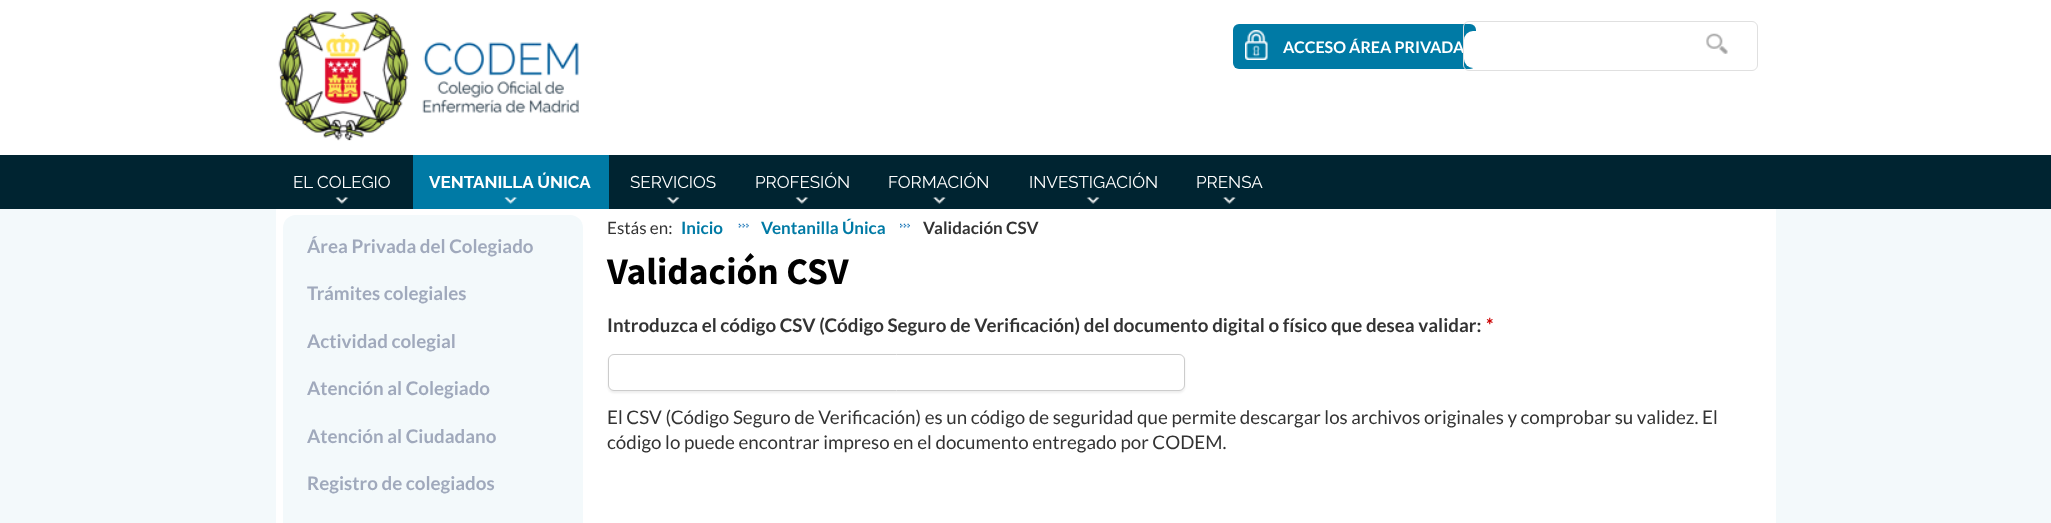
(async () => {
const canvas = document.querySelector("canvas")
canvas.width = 2051
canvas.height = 523
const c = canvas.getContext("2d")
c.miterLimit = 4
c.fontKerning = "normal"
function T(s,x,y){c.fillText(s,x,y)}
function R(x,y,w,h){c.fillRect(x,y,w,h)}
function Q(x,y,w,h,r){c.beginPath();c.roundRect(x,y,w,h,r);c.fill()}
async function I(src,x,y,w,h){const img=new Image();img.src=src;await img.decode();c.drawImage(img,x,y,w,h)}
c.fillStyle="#f3f9fb"
R(0,0,2051,523)
c.fillStyle="#fff"
R(0,0,2051,155)
await I("1.png",278,11,301,130)
c.fillStyle="#007aa5"
Q(1233,24,243,45,6)
await I("2.png",1245,30,23,30)
c.font="bold 16px Lato"
c.fillStyle="#fff"
T("ACCESO ÁREA PRIVADA",1283,53)
c.beginPath()
c.roundRect(1463.5,21.5,294,49,5.5)
c.strokeStyle="#e0e0e0"
c.stroke()
Q(1464,31,239,37,9)
await I("3.png",1706,33,22,21)
c.fillStyle="#002431"
R(0,155,2051,54)
await I("4.png",335,197,14,7)
c.font="17px Raleway"
c.fillStyle="#fff"
T("EL COLEGIO",293,188)
c.fillStyle="#007aa5"
R(413,155,196,54)
await I("5.png",504,197,14,7)
c.font="bold 17px Raleway"
c.fillStyle="#fff"
T("VENTANILLA ÚNICA",429,188)
await I("6.png",666,197,14,7)
c.font="17px Raleway"
T("SERVICIOS",630,188)
await I("4.png",795,197,14,7)
T("PROFESIÓN",755,188)
await I("7.png",932,197,14,7)
T("FORMACIÓN",888,188)
await I("6.png",1086,197,14,7)
T("INVESTIGACIÓN",1029,188)
await I("8.png",1222,197,14,7)
T("PRENSA",1196,188)
R(276,209,1500,314)
c.fillStyle="#f3f9fb"
Q(283,215,300,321,13)
c.font="bold 18.75px Lato"
c.fillStyle="#a0a9bc"
T("Área Privada del Colegiado",307,253)
T("Trámites colegiales",307,300)
T("Actividad colegial",307,348)
T("Atención al Colegiado",307,395)
T("Atención al Ciudadano",307,443)
T("Registro de colegiados",307,490)
c.font="17px Lato"
c.fillStyle="#333"
T("Estás en:",607,234)
c.font="bold 17px Lato"
c.fillStyle="#007aa5"
T("Inicio",681,234)
await I("9.png",738,223,11,5)
T("Ventanilla Única",761,234)
await I("10.png",900,223,10,5)
c.fillStyle="#333"
T("Validación CSV",923,234)
c.font="bold 37.5px Source Sans Pro"
c.fillStyle="#000"
T("Validación CSV",607,284)
c.font="bold 18.75px Lato"
c.fillStyle="#333"
T("Introduzca el código CSV (Código Seguro de Verificación) del documento digital o físico que desea validar:",607,332)
c.fillStyle="#c00"
T("*",1486,332)
c.fillStyle="#00000012"
c.filter="blur(1px)"
c.beginPath()
c.roundRect(608,355,577,38,6)
c.fill()
c.filter="none"
c.fillStyle="#fff"
c.beginPath()
c.roundRect(608.5,354.5,576,36,5.5)
c.fill()
c.strokeStyle="#ccc"
c.stroke()
c.font="18.75px Lato"
c.fillStyle="#333"
T("El CSV (Código Seguro de Verificación) es un código de seguridad que permite descargar los archivos originales y comprobar su validez. El",607,424)
T("código lo puede encontrar impreso en el documento entregado por CODEM.",607,449)
})()
